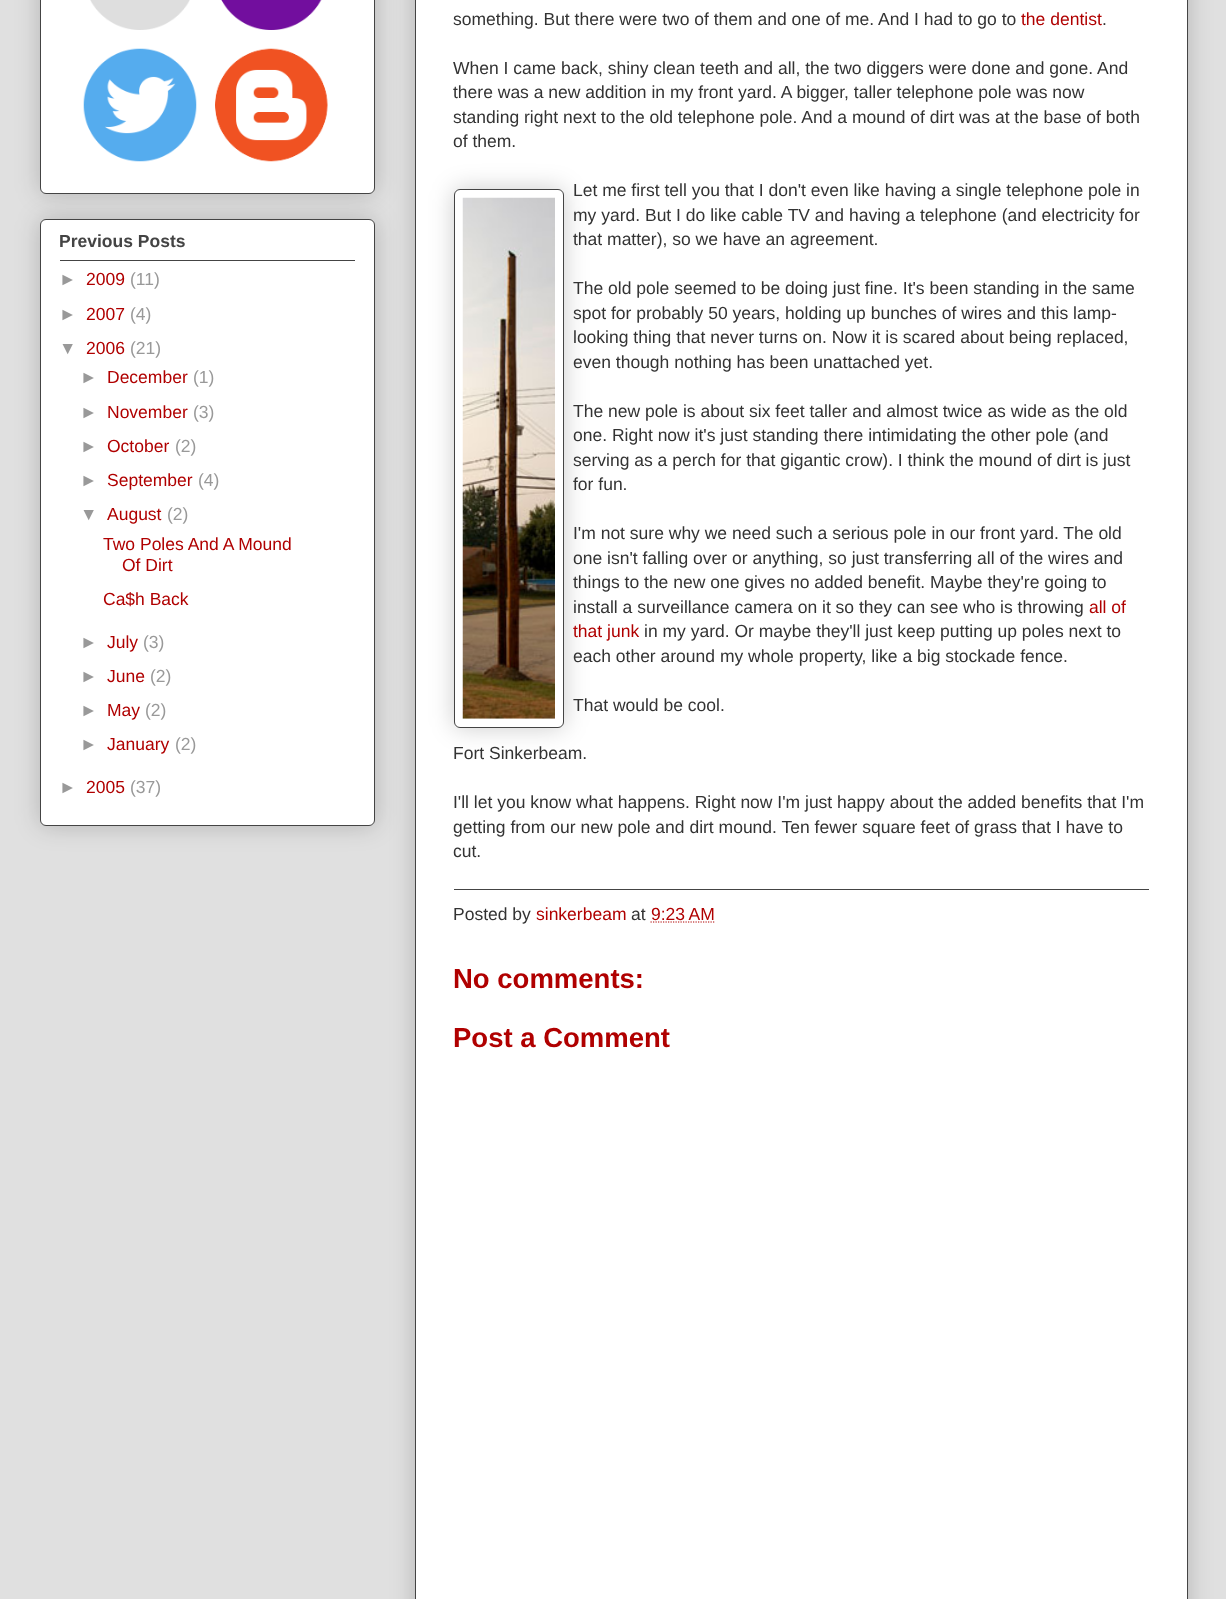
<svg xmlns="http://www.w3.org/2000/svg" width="1226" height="1599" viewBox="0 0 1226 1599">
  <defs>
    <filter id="blur1" x="-50%" y="-200%" width="200%" height="500%"><feGaussianBlur stdDeviation="12.5"/></filter>
  </defs>
  <rect width="100%" height="100%" fill="#e0e0e0"/>
  <rect x="40" y="-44" width="335" height="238" rx="6" fill="#000000" fill-opacity="0.2" filter="url(#blur1)"/>
  <rect x="40.5" y="-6.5" width="334" height="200" rx="5.5" fill="#ffffff" stroke="#444444"/>
  <image x="90" y="0" width="100" height="30" href="img1.png"/>
  <image x="221" y="0" width="101" height="30" href="img2.png"/>
  <image x="83" y="48" width="114" height="114" href="img3.png"/>
  <image x="215" y="48" width="113" height="114" href="img4.png"/>
  <rect x="40" y="219" width="335" height="607" rx="6" fill="#000000" fill-opacity="0.2" filter="url(#blur1)"/>
  <rect x="40.5" y="219.5" width="334" height="606" rx="5.5" fill="#ffffff" stroke="#444444"/>
  <text x="59" y="247" font-family="Liberation Sans" font-size="17.5" font-weight="bold" fill="#444444">Previous Posts</text>
  <rect x="60" y="260" width="295" height="1" fill="#444444"/>
  <text x="59" y="285" font-family="Liberation Sans" font-size="17.5" fill="#999999">►</text>
  <text x="86" y="285" font-family="Liberation Sans" font-size="17.5" fill="#b00000">2009</text>
  <text x="130" y="285" font-family="Liberation Sans" font-size="17.5" fill="#999999">(11)</text>
  <text x="59" y="320" font-family="Liberation Sans" font-size="17.5" fill="#999999">►</text>
  <text x="86" y="320" font-family="Liberation Sans" font-size="17.5" fill="#b00000">2007</text>
  <text x="130" y="320" font-family="Liberation Sans" font-size="17.5" fill="#999999">(4)</text>
  <text x="59" y="354" font-family="Liberation Sans" font-size="17.5" fill="#999999">▼</text>
  <text x="86" y="354" font-family="Liberation Sans" font-size="17.5" fill="#b00000">2006</text>
  <text x="130" y="354" font-family="Liberation Sans" font-size="17.5" fill="#999999">(21)</text>
  <text x="80" y="383" font-family="Liberation Sans" font-size="17.5" fill="#999999">►</text>
  <text x="107" y="383" font-family="Liberation Sans" font-size="17.5" fill="#b00000">December</text>
  <text x="193" y="383" font-family="Liberation Sans" font-size="17.5" fill="#999999">(1)</text>
  <text x="80" y="418" font-family="Liberation Sans" font-size="17.5" fill="#999999">►</text>
  <text x="107" y="418" font-family="Liberation Sans" font-size="17.5" fill="#b00000">November</text>
  <text x="193" y="418" font-family="Liberation Sans" font-size="17.5" fill="#999999">(3)</text>
  <text x="80" y="452" font-family="Liberation Sans" font-size="17.5" fill="#999999">►</text>
  <text x="107" y="452" font-family="Liberation Sans" font-size="17.5" fill="#b00000">October</text>
  <text x="175" y="452" font-family="Liberation Sans" font-size="17.5" fill="#999999">(2)</text>
  <text x="80" y="486" font-family="Liberation Sans" font-size="17.5" fill="#999999">►</text>
  <text x="107" y="486" font-family="Liberation Sans" font-size="17.5" fill="#b00000">September</text>
  <text x="198" y="486" font-family="Liberation Sans" font-size="17.5" fill="#999999">(4)</text>
  <text x="80" y="520" font-family="Liberation Sans" font-size="17.5" fill="#999999">▼</text>
  <text x="107" y="520" font-family="Liberation Sans" font-size="17.5" fill="#b00000">August</text>
  <text x="167" y="520" font-family="Liberation Sans" font-size="17.5" fill="#999999">(2)</text>
  <text x="103" y="550" font-family="Liberation Sans" font-size="17.5" fill="#b00000">Two Poles And A Mound</text>
  <text x="122" y="571" font-family="Liberation Sans" font-size="17.5" fill="#b00000">Of Dirt</text>
  <text x="103" y="605" font-family="Liberation Sans" font-size="17.5" fill="#b00000">Ca$h Back</text>
  <text x="80" y="648" font-family="Liberation Sans" font-size="17.5" fill="#999999">►</text>
  <text x="107" y="648" font-family="Liberation Sans" font-size="17.5" fill="#b00000">July</text>
  <text x="143" y="648" font-family="Liberation Sans" font-size="17.5" fill="#999999">(3)</text>
  <text x="80" y="682" font-family="Liberation Sans" font-size="17.5" fill="#999999">►</text>
  <text x="107" y="682" font-family="Liberation Sans" font-size="17.5" fill="#b00000">June</text>
  <text x="150" y="682" font-family="Liberation Sans" font-size="17.5" fill="#999999">(2)</text>
  <text x="80" y="716" font-family="Liberation Sans" font-size="17.5" fill="#999999">►</text>
  <text x="107" y="716" font-family="Liberation Sans" font-size="17.5" fill="#b00000">May</text>
  <text x="145" y="716" font-family="Liberation Sans" font-size="17.5" fill="#999999">(2)</text>
  <text x="80" y="750" font-family="Liberation Sans" font-size="17.5" fill="#999999">►</text>
  <text x="107" y="750" font-family="Liberation Sans" font-size="17.5" fill="#b00000">January</text>
  <text x="175" y="750" font-family="Liberation Sans" font-size="17.5" fill="#999999">(2)</text>
  <text x="59" y="793" font-family="Liberation Sans" font-size="17.5" fill="#999999">►</text>
  <text x="86" y="793" font-family="Liberation Sans" font-size="17.5" fill="#b00000">2005</text>
  <text x="130" y="793" font-family="Liberation Sans" font-size="17.5" fill="#999999">(37)</text>
  <rect x="415" y="-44" width="773" height="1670" rx="6" fill="#000000" fill-opacity="0.2" filter="url(#blur1)"/>
  <rect x="415.5" y="-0.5" width="772" height="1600" fill="#ffffff" stroke="#444444"/>
  <text x="453" y="25" font-family="Liberation Sans" font-size="17.5" fill="#333333">something. But there were two of them and one of me. And I had to go to</text>
  <text x="1021" y="25" font-family="Liberation Sans" font-size="17.5" fill="#b00000">the dentist</text>
  <text x="1102" y="25" font-family="Liberation Sans" font-size="17.5" fill="#333333">.</text>
  <text x="453" y="74" font-family="Liberation Sans" font-size="17.5" fill="#333333">When I came back, shiny clean teeth and all, the two diggers were done and gone. And</text>
  <text x="453" y="98" font-family="Liberation Sans" font-size="17.5" fill="#333333">there was a new addition in my front yard. A bigger, taller telephone pole was now</text>
  <text x="453" y="123" font-family="Liberation Sans" font-size="17.5" fill="#333333">standing right next to the old telephone pole. And a mound of dirt was at the base of both</text>
  <text x="453" y="147" font-family="Liberation Sans" font-size="17.5" fill="#333333">of them.</text>
  <rect x="454" y="189" width="110" height="539" rx="6" fill="#000000" fill-opacity="0.2" filter="url(#blur1)"/>
  <rect x="454.5" y="189.5" width="109" height="538" rx="5.5" fill="#ffffff" stroke="#444444"/>
  <image x="462" y="197" width="93" height="522" href="img5.png"/>
  <text x="573" y="196" font-family="Liberation Sans" font-size="17.5" fill="#333333">Let me first tell you that I don't even like having a single telephone pole in</text>
  <text x="573" y="221" font-family="Liberation Sans" font-size="17.5" fill="#333333">my yard. But I do like cable TV and having a telephone (and electricity for</text>
  <text x="573" y="245" font-family="Liberation Sans" font-size="17.5" fill="#333333">that matter), so we have an agreement.</text>
  <text x="573" y="294" font-family="Liberation Sans" font-size="17.5" fill="#333333">The old pole seemed to be doing just fine. It's been standing in the same</text>
  <text x="573" y="319" font-family="Liberation Sans" font-size="17.5" fill="#333333">spot for probably 50 years, holding up bunches of wires and this lamp-</text>
  <text x="573" y="343" font-family="Liberation Sans" font-size="17.5" fill="#333333">looking thing that never turns on. Now it is scared about being replaced,</text>
  <text x="573" y="368" font-family="Liberation Sans" font-size="17.5" fill="#333333">even though nothing has been unattached yet.</text>
  <text x="573" y="417" font-family="Liberation Sans" font-size="17.5" fill="#333333">The new pole is about six feet taller and almost twice as wide as the old</text>
  <text x="573" y="441" font-family="Liberation Sans" font-size="17.5" fill="#333333">one. Right now it's just standing there intimidating the other pole (and</text>
  <text x="573" y="466" font-family="Liberation Sans" font-size="17.5" fill="#333333">serving as a perch for that gigantic crow). I think the mound of dirt is just</text>
  <text x="573" y="490" font-family="Liberation Sans" font-size="17.5" fill="#333333">for fun.</text>
  <text x="573" y="539" font-family="Liberation Sans" font-size="17.5" fill="#333333">I'm not sure why we need such a serious pole in our front yard. The old</text>
  <text x="573" y="564" font-family="Liberation Sans" font-size="17.5" fill="#333333">one isn't falling over or anything, so just transferring all of the wires and</text>
  <text x="573" y="588" font-family="Liberation Sans" font-size="17.5" fill="#333333">things to the new one gives no added benefit. Maybe they're going to</text>
  <text x="573" y="613" font-family="Liberation Sans" font-size="17.5" fill="#333333">install a surveillance camera on it so they can see who is throwing</text>
  <text x="1089" y="613" font-family="Liberation Sans" font-size="17.5" fill="#b00000">all of</text>
  <text x="573" y="637" font-family="Liberation Sans" font-size="17.5" fill="#b00000">that junk</text>
  <text x="644" y="637" font-family="Liberation Sans" font-size="17.5" fill="#333333">in my yard. Or maybe they'll just keep putting up poles next to</text>
  <text x="573" y="662" font-family="Liberation Sans" font-size="17.5" fill="#333333">each other around my whole property, like a big stockade fence.</text>
  <text x="573" y="711" font-family="Liberation Sans" font-size="17.5" fill="#333333">That would be cool.</text>
  <text x="453" y="759" font-family="Liberation Sans" font-size="17.5" fill="#333333">Fort Sinkerbeam.</text>
  <text x="453" y="808" font-family="Liberation Sans" font-size="17.5" fill="#333333">I'll let you know what happens. Right now I'm just happy about the added benefits that I'm</text>
  <text x="453" y="833" font-family="Liberation Sans" font-size="17.5" fill="#333333">getting from our new pole and dirt mound. Ten fewer square feet of grass that I have to</text>
  <text x="453" y="857" font-family="Liberation Sans" font-size="17.5" fill="#333333">cut.</text>
  <rect x="454" y="889" width="695" height="1" fill="#444444"/>
  <text x="453" y="920" font-family="Liberation Sans" font-size="17.5" fill="#333333">Posted by</text>
  <text x="536" y="920" font-family="Liberation Sans" font-size="17.5" fill="#b00000">sinkerbeam</text>
  <text x="631" y="920" font-family="Liberation Sans" font-size="17.5" fill="#333333">at</text>
  <text x="651" y="920" font-family="Liberation Sans" font-size="17.5" fill="#b00000">9:23 AM</text>
  <path d="M650.5 922H714.5" fill="none" stroke="#b00000" stroke-width="1.2" stroke-dasharray="1.25 1.25"/>
  <text x="453" y="988" font-family="Liberation Sans" font-size="27.5" font-weight="bold" fill="#b00000">No comments:</text>
  <text x="453" y="1047" font-family="Liberation Sans" font-size="27.5" font-weight="bold" fill="#b00000">Post a Comment</text>
</svg>
